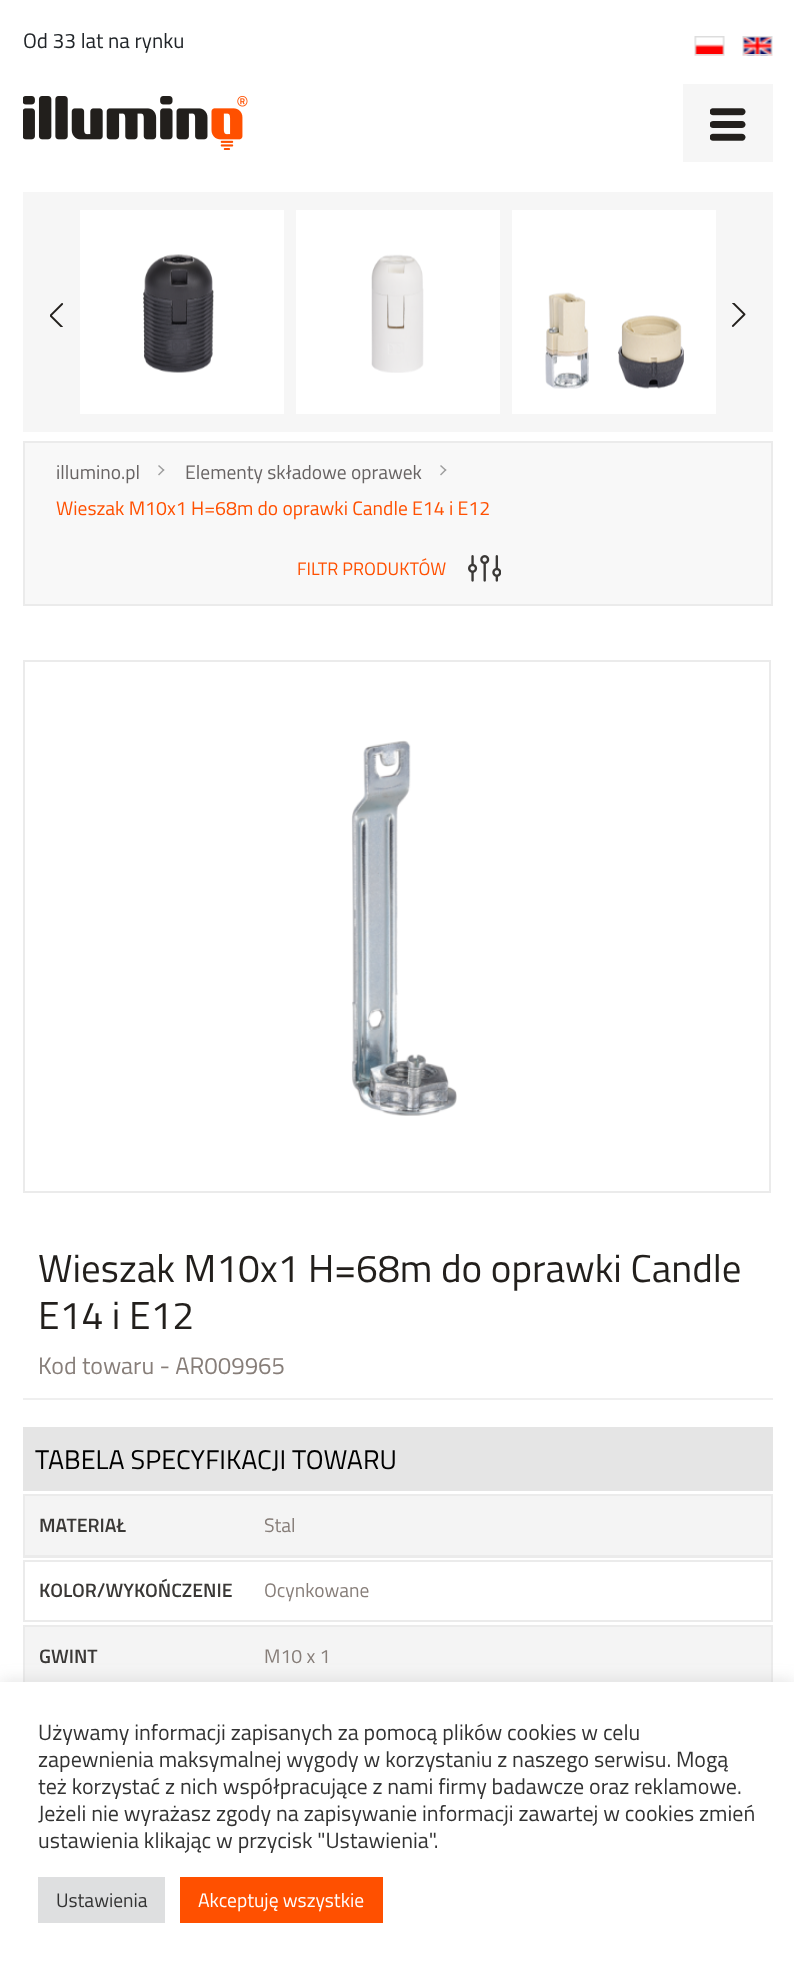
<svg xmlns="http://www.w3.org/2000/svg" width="794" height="1967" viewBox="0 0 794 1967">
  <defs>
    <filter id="blur1" x="-50%" y="-200%" width="200%" height="500%"><feGaussianBlur stdDeviation="7.5"/></filter>
  </defs>
  <rect width="100%" height="100%" fill="#ffffff"/>
  <text x="23" y="48" font-family="Titillium Web" font-size="21" fill="#212529">Od 33 lat na rynku</text>
  <image x="694" y="36" width="31" height="20" href="img1.png"/>
  <image x="742" y="36" width="31" height="20" href="img2.png"/>
  <image x="23" y="96" width="225" height="54" href="img3.png"/>
  <rect x="683" y="84" width="90" height="78" fill="#f6f6f6"/>
  <image x="710" y="108" width="36" height="33" href="img4.png"/>
  <rect x="23" y="192" width="750" height="240" fill="#f6f6f6"/>
  <image x="50" y="303" width="14" height="24" href="img5.png"/>
  <rect x="80" y="210" width="204" height="204" fill="#ffffff"/>
  <image x="143" y="254" width="71" height="119" href="img6.png"/>
  <rect x="296" y="210" width="204" height="204" fill="#ffffff"/>
  <image x="371" y="254" width="53" height="119" href="img7.png"/>
  <rect x="512" y="210" width="204" height="204" fill="#ffffff"/>
  <image x="545" y="292" width="139" height="97" href="img8.png"/>
  <image x="731" y="303" width="15" height="24" href="img9.png"/>
  <rect x="24" y="442" width="748" height="163" fill="#f8f8f8" stroke="#ebebeb" stroke-width="2"/>
  <text x="56" y="479" font-family="Titillium Web" font-size="19.5" fill="#686464">illumino.pl</text>
  <path d="M158 466L159 465L164.5 470L163.5 471Z" fill="#9e9e9e"/>
  <path d="M158 474.5L163.5 469L164.5 470L159 475.5Z" fill="#9e9e9e"/>
  <text x="185" y="479" font-family="Titillium Web" font-size="19.5" fill="#686464">Elementy składowe oprawek</text>
  <path d="M440 466L441 465L446.5 470L445.5 471Z" fill="#9e9e9e"/>
  <path d="M440 474.5L445.5 469L446.5 470L441 475.5Z" fill="#9e9e9e"/>
  <text x="56" y="515" font-family="Titillium Web" font-size="19.5" fill="#ff5000">Wieszak M10x1 H=68m do oprawki Candle E14 i E12</text>
  <text x="297" y="575" font-family="Titillium Web" font-size="18" fill="#ff5000">FILTR PRODUKTÓW</text>
  <image x="468" y="555" width="33" height="27" href="img10.png"/>
  <rect x="24" y="661" width="746" height="531" fill="none" stroke="#ebebeb" stroke-width="2"/>
  <image x="351" y="740" width="106" height="376" href="img11.png"/>
  <rect x="23" y="1398" width="750" height="2" fill="#efefef"/>
  <text x="38" y="1282" font-family="Titillium Web" font-size="39" fill="#221f1c">Wieszak M10x1 H=68m do oprawki Candle</text>
  <text x="38" y="1329" font-family="Titillium Web" font-size="39" fill="#221f1c">E14 i E12</text>
  <text x="38" y="1374" font-family="Titillium Web" font-size="24" fill="#877e79">Kod towaru - AR009965</text>
  <rect x="23" y="1427" width="750" height="64" fill="#e5e5e5"/>
  <text x="35" y="1469" font-family="Titillium Web" font-size="27" fill="#000000">TABELA SPECYFIKACJI TOWARU</text>
  <rect x="24" y="1495" width="748" height="61" fill="#f4f4f4" stroke="#ebebeb" stroke-width="2"/>
  <rect x="23" y="1557" width="750" height="1" fill="#ebebeb"/>
  <text x="39" y="1532" font-family="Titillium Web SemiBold" font-size="19.5" font-weight="600" fill="#3a3836">MATERIAŁ</text>
  <text x="264" y="1532" font-family="Titillium Web" font-size="19.5" fill="#877e79">Stal</text>
  <rect x="24" y="1561" width="748" height="60" fill="none" stroke="#ebebeb" stroke-width="2"/>
  <text x="39" y="1597" font-family="Titillium Web SemiBold" font-size="19.5" font-weight="600" fill="#3a3836">KOLOR/WYKOŃCZENIE</text>
  <text x="264" y="1597" font-family="Titillium Web" font-size="19.5" fill="#877e79">Ocynkowane</text>
  <rect x="25" y="1627" width="746" height="55" fill="#f4f4f4"/>
  <rect x="24" y="1626" width="748" height="61" fill="none" stroke="#ebebeb" stroke-width="2"/>
  <text x="39" y="1663" font-family="Titillium Web SemiBold" font-size="19.5" font-weight="600" fill="#3a3836">GWINT</text>
  <text x="264" y="1663" font-family="Titillium Web" font-size="19.5" fill="#877e79">M10 x 1</text>
  <rect x="0" y="1680" width="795" height="287" fill="#acabab" fill-opacity="0.3" filter="url(#blur1)"/>
  <rect x="0" y="1682" width="794" height="285" fill="#ffffff"/>
  <text x="38" y="1740" font-family="Titillium Web" font-size="22" fill="#333333">Używamy informacji zapisanych za pomocą plików cookies w celu</text>
  <text x="38" y="1767" font-family="Titillium Web" font-size="22" fill="#333333">zapewnienia maksymalnej wygody w korzystaniu z naszego serwisu. Mogą</text>
  <text x="38" y="1794" font-family="Titillium Web" font-size="22" fill="#333333">też korzystać z nich współpracujące z nami firmy badawcze oraz reklamowe.</text>
  <text x="38" y="1821" font-family="Titillium Web" font-size="22" fill="#333333">Jeżeli nie wyrażasz zgody na zapisywanie informacji zawartej w cookies zmień</text>
  <text x="38" y="1848" font-family="Titillium Web" font-size="22" fill="#333333">ustawienia klikając w przycisk "Ustawienia".</text>
  <rect x="38" y="1877" width="127" height="46" fill="#dedfe0"/>
  <text x="56" y="1907" font-family="Titillium Web" font-size="19.5" fill="#333333">Ustawienia</text>
  <rect x="180" y="1877" width="203" height="46" fill="#ff5000"/>
  <text x="198" y="1907" font-family="Titillium Web" font-size="19.5" fill="#ffffff">Akceptuję wszystkie</text>
</svg>
